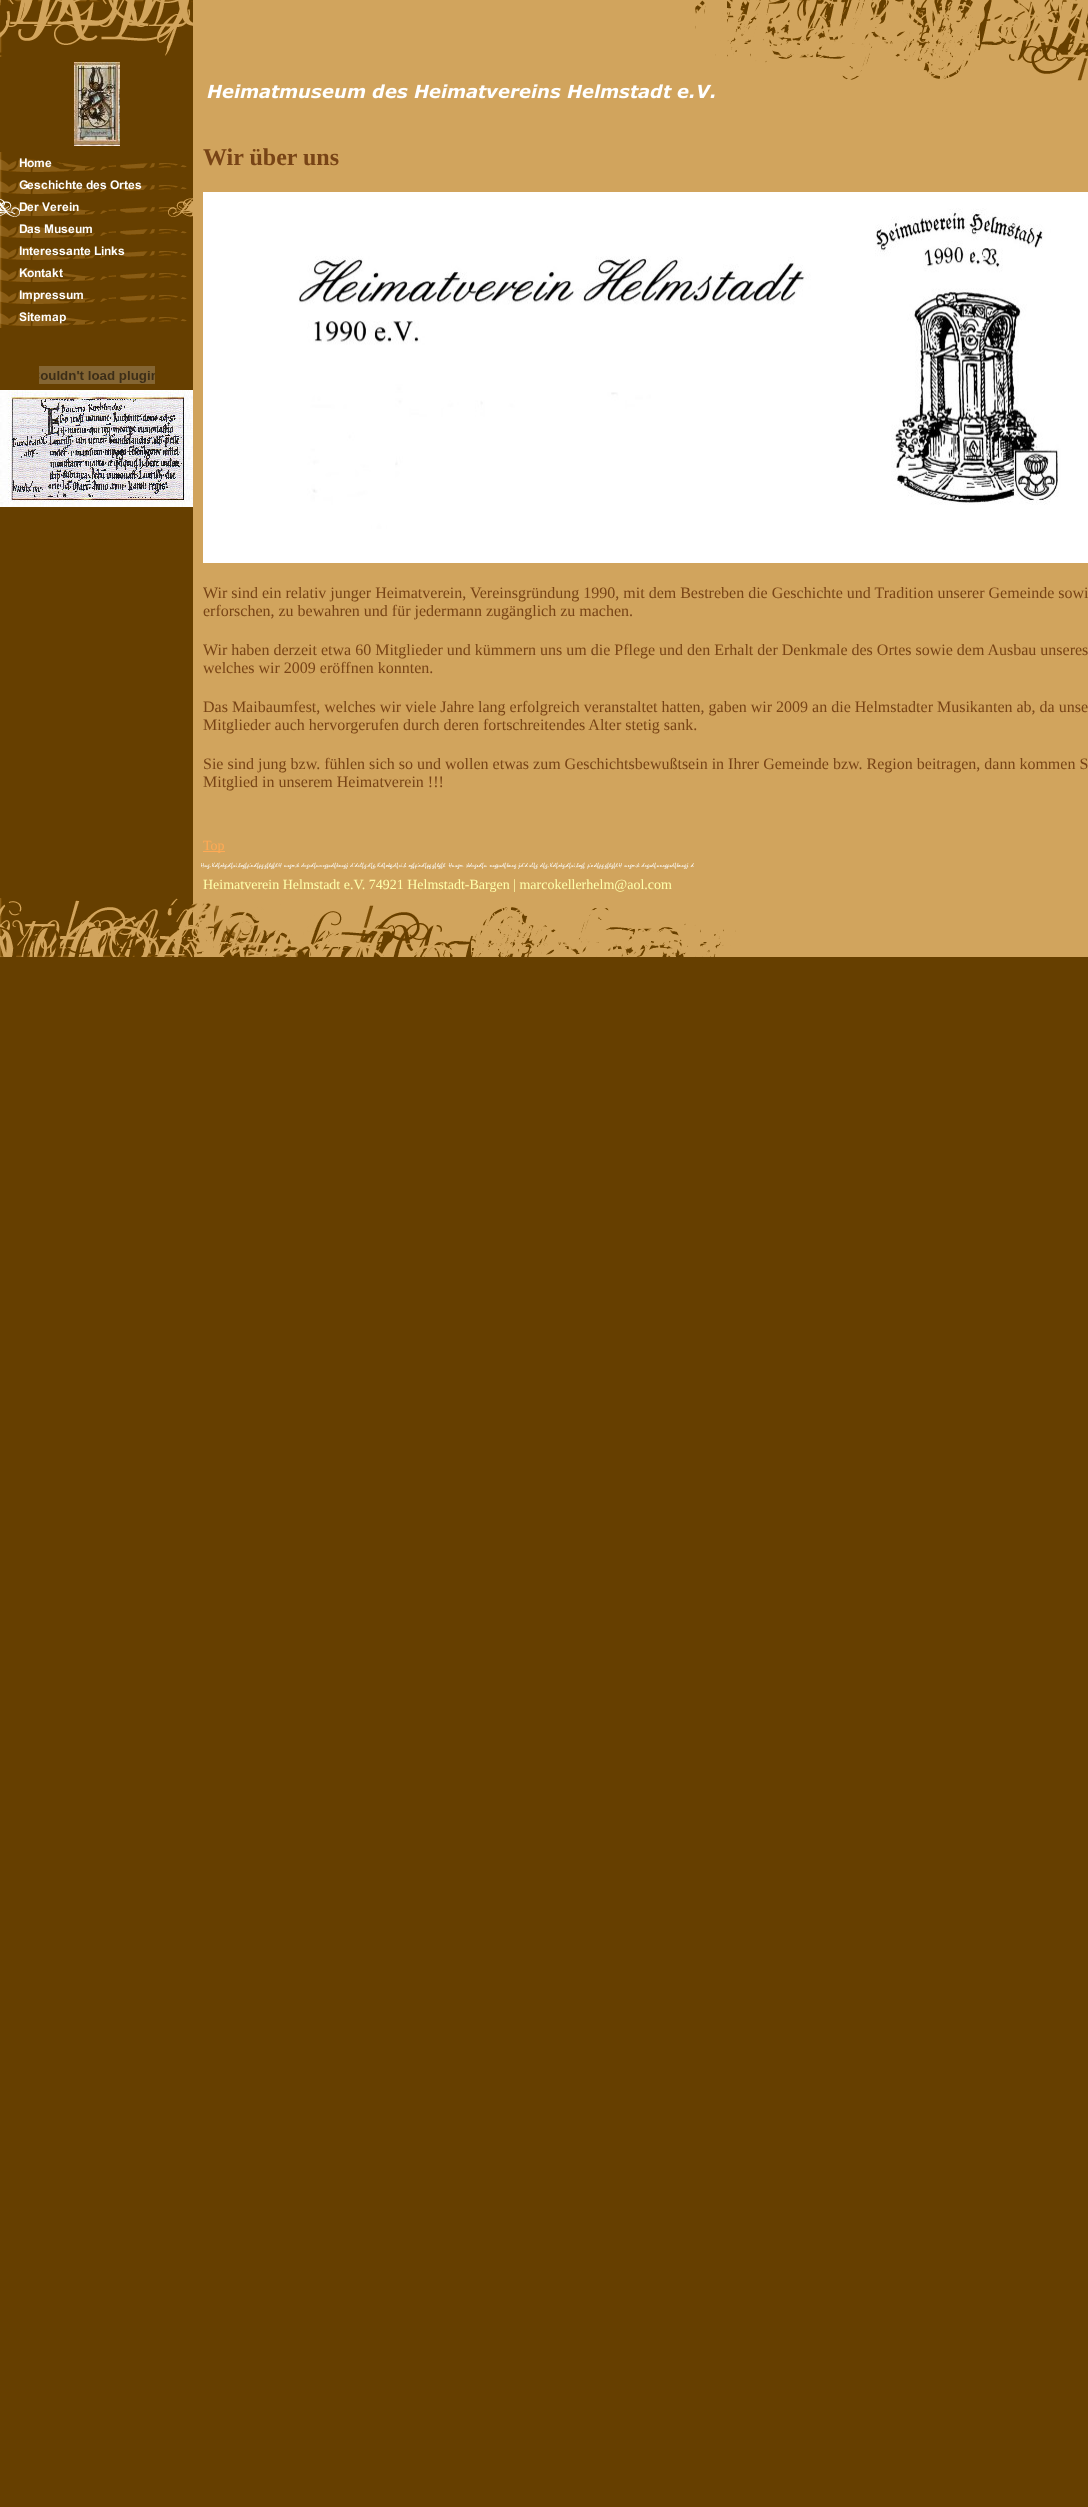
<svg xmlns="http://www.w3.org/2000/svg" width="1088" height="2507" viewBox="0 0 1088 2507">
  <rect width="100%" height="100%" fill="#663f00"/>
  <image x="0" y="0" width="193" height="57" href="img1.png"/>
  <image x="74" y="62" width="46" height="84" href="img2.png"/>
  <image x="0" y="152" width="187" height="22" href="img3.png"/>
  <image x="0" y="174" width="187" height="22" href="img4.png"/>
  <image x="0" y="196" width="193" height="22" href="img5.png"/>
  <image x="0" y="218" width="187" height="22" href="img6.png"/>
  <image x="0" y="240" width="187" height="22" href="img7.png"/>
  <image x="0" y="262" width="187" height="22" href="img8.png"/>
  <image x="0" y="284" width="187" height="22" href="img9.png"/>
  <image x="0" y="306" width="187" height="22" href="img10.png"/>
  <image x="39" y="366" width="116" height="18" href="img11.png"/>
  <image x="0" y="390" width="193" height="117" href="img12.png"/>
  <rect x="193" y="0" width="895" height="957" fill="#d1a45d"/>
  <image x="695" y="0" width="393" height="81" href="img13.png"/>
  <image x="207" y="84" width="508" height="15" href="img14.png"/>
  <text x="203" y="165" font-family="Liberation Serif" font-size="24" font-weight="bold" fill="#784416">Wir über uns</text>
  <image x="203" y="192" width="885" height="371" href="img15.png"/>
  <text x="203" y="598" font-family="Liberation Serif" font-size="16" fill="#784416">Wir sind ein relativ junger Heimatverein, Vereinsgründung 1990, mit dem Bestreben die Geschichte und Tradition unserer Gemeinde sowi</text>
  <text x="203" y="616" font-family="Liberation Serif" font-size="16" fill="#784416">erforschen, zu bewahren und für jedermann zugänglich zu machen.</text>
  <text x="203" y="655" font-family="Liberation Serif" font-size="16" fill="#784416">Wir haben derzeit etwa 60 Mitglieder und kümmern uns um die Pflege und den Erhalt der Denkmale des Ortes sowie dem Ausbau unseres</text>
  <text x="203" y="673" font-family="Liberation Serif" font-size="16" fill="#784416">welches wir 2009 eröffnen konnten.</text>
  <text x="203" y="712" font-family="Liberation Serif" font-size="16" fill="#784416">Das Maibaumfest, welches wir viele Jahre lang erfolgreich veranstaltet hatten, gaben wir 2009 an die Helmstadter Musikanten ab, da unse</text>
  <text x="203" y="730" font-family="Liberation Serif" font-size="16" fill="#784416">Mitglieder auch hervorgerufen durch deren fortschreitendes Alter stetig sank.</text>
  <text x="203" y="769" font-family="Liberation Serif" font-size="16" fill="#784416">Sie sind jung bzw. fühlen sich so und wollen etwas zum Geschichtsbewußtsein in Ihrer Gemeinde bzw. Region beitragen, dann kommen S</text>
  <text x="203" y="787" font-family="Liberation Serif" font-size="16" fill="#784416">Mitglied in unserem Heimatverein !!!</text>
  <rect x="203" y="851" width="22" height="1" fill="#ffaa55"/>
  <text x="203" y="850" font-family="Liberation Serif" font-size="14" fill="#ffaa55">Top</text>
  <image x="201" y="862" width="493" height="7" href="img16.png"/>
  <text x="203" y="889" font-family="Liberation Serif" font-size="14" fill="#ffffaa">Heimatverein Helmstadt e.V. 74921 Helmstadt-Bargen | marcokellerhelm@aol.com</text>
  <image x="0" y="898" width="193" height="59" href="img17.png"/>
  <image x="193" y="903" width="543" height="54" href="img18.png"/>
</svg>
